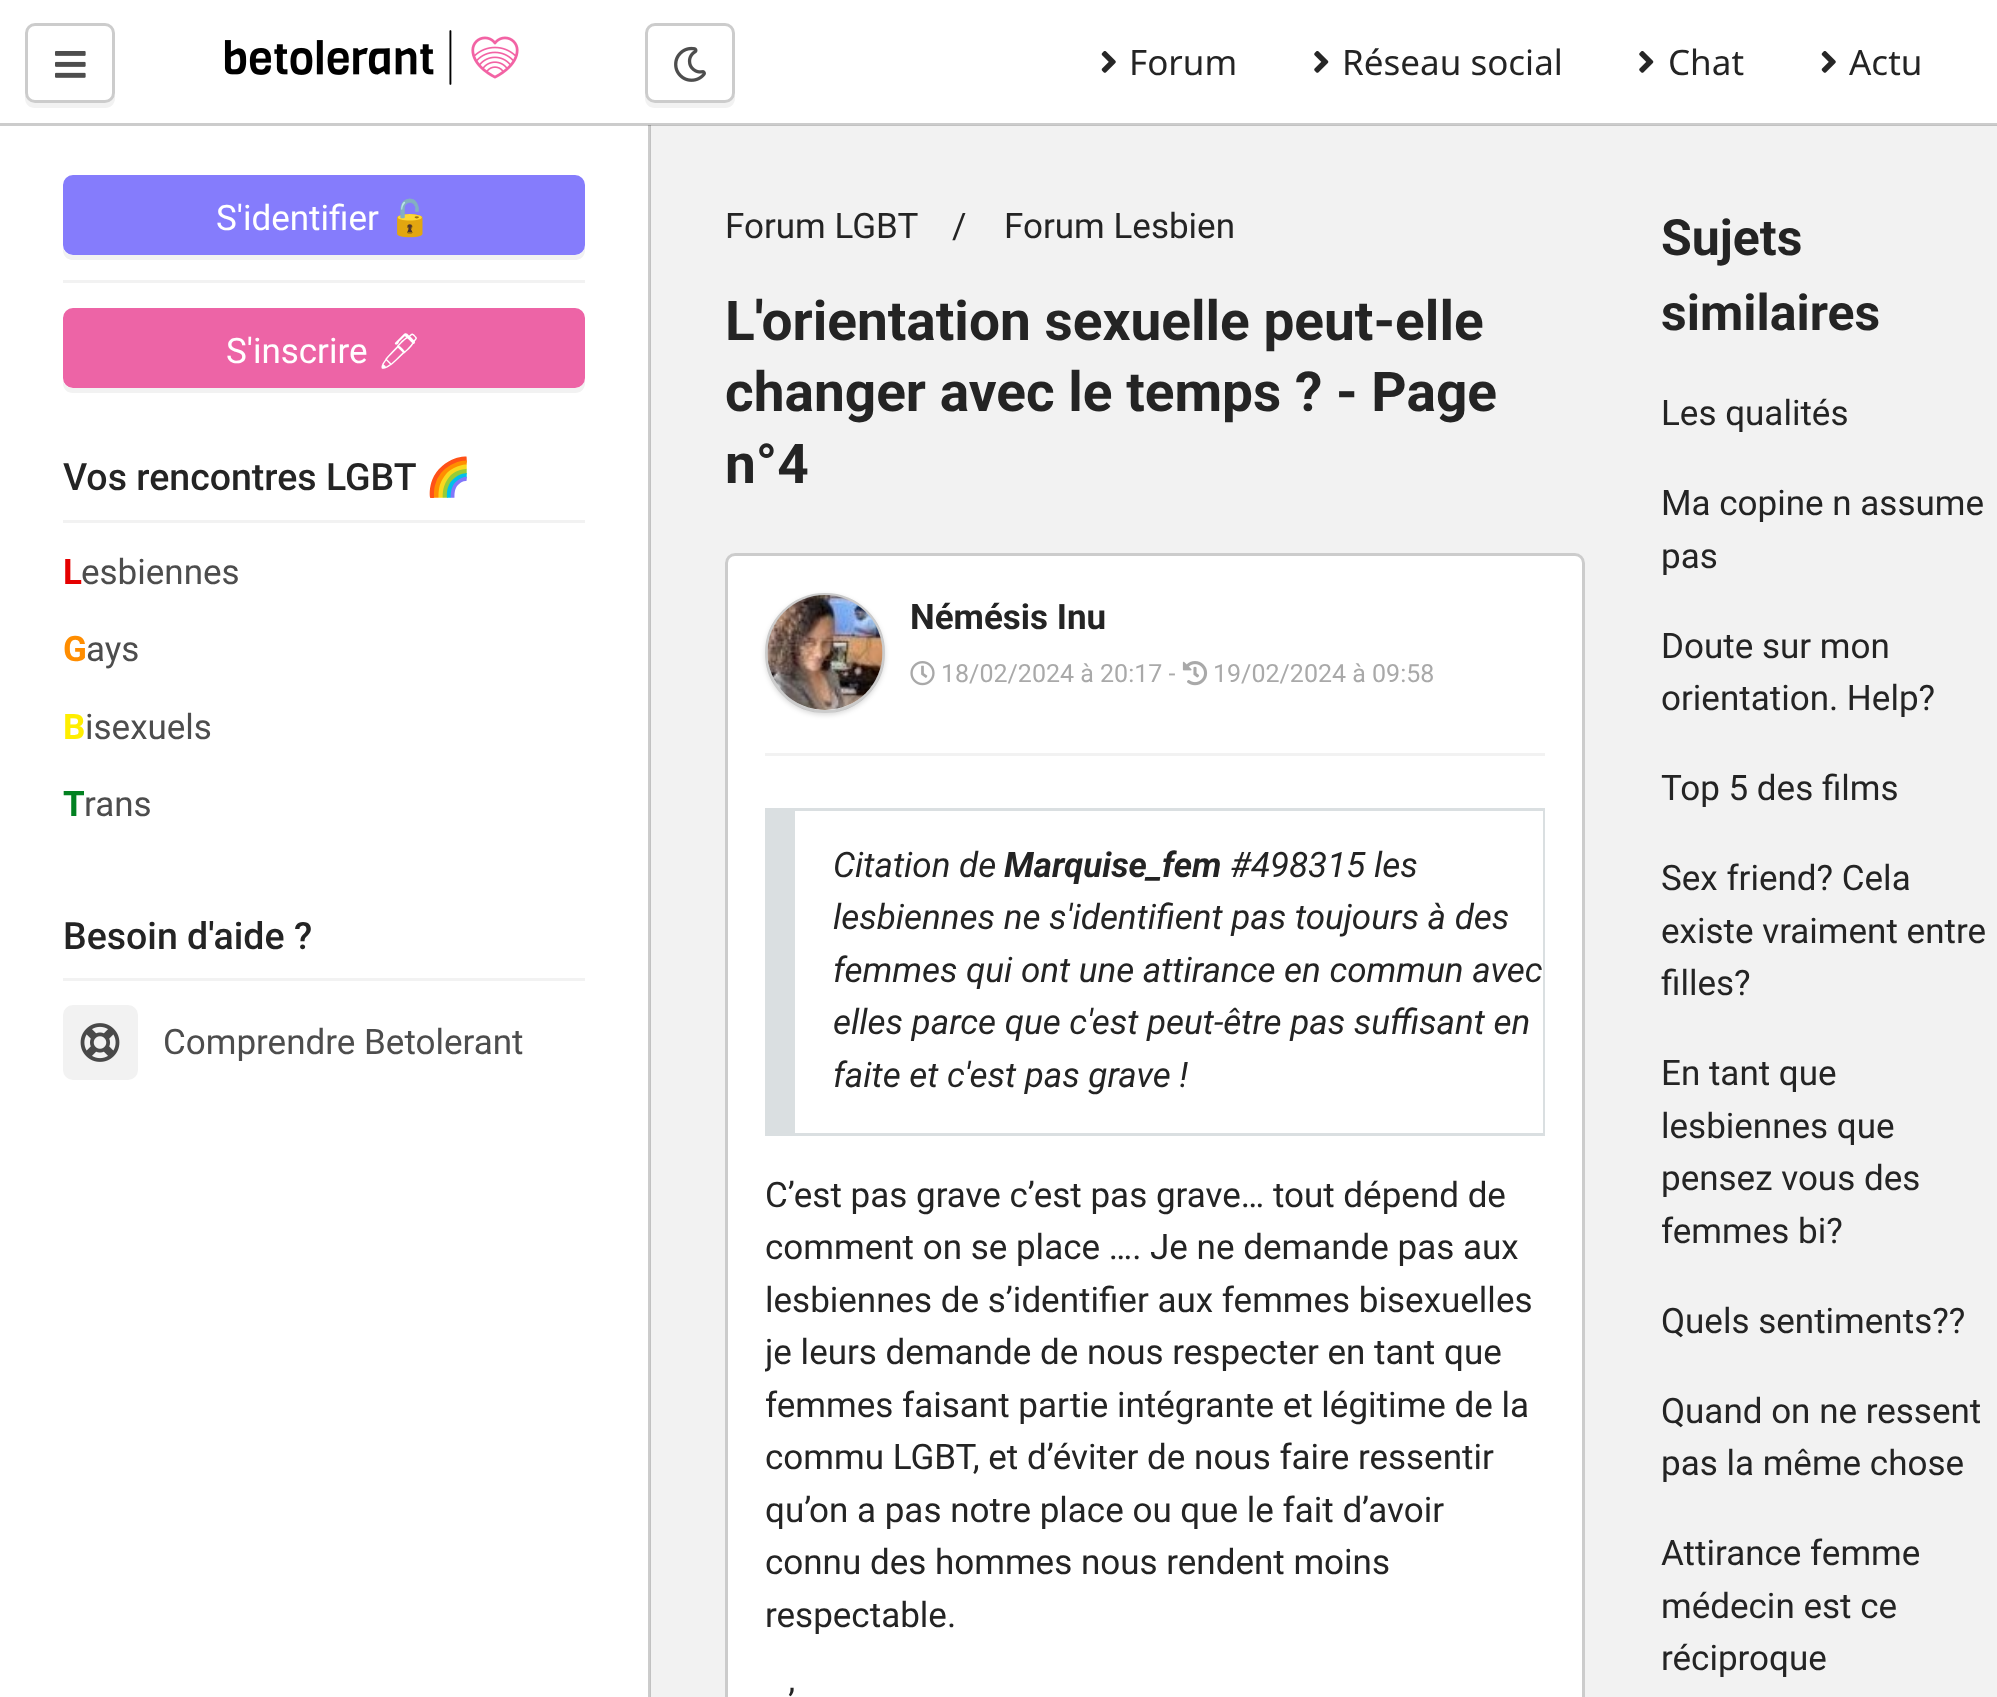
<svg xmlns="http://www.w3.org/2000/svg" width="1997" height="1697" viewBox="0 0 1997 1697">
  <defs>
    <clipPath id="clip1"><path d="M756 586H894V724H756ZM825 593C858 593 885 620 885 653C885 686 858 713 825 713C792 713 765 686 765 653C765 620 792 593 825 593Z" clip-rule="evenodd"/></clipPath>
    <filter id="blur1" x="-50%" y="-200%" width="200%" height="500%"><feGaussianBlur stdDeviation="2.5"/></filter>
    <clipPath id="clip2"><rect x="765" y="773" width="780" height="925"/></clipPath>
  </defs>
  <rect width="100%" height="100%" fill="#f2f2f2"/>
  <rect x="651" y="125" width="1346" height="1" fill="#c2c2c2"/>
  <rect x="650" y="125" width="1" height="1572" fill="#c2c2c2"/>
  <rect x="648" y="125" width="3" height="1" fill="#9b9b9b"/>
  <rect x="0" y="0" width="1997" height="123" fill="#ffffff"/>
  <rect x="0" y="123" width="1997" height="2" fill="#cccccc"/>
  <path d="M25 92V98C25 104 29 108 35 108H105C111 108 115 104 115 98V92C115 98 111 102 105 102H35C29 102 25 98 25 92Z" fill="#f2f2f2"/>
  <rect x="25" y="23" width="90" height="80" rx="10" fill="#ffffff"/>
  <rect x="26.5" y="24.5" width="87" height="77" rx="8.5" fill="none" stroke="#000000" stroke-opacity="0.2" stroke-width="3"/>
  <image x="55" y="51" width="31" height="27" href="img1.png"/>
  <image x="224" y="30" width="295" height="55" href="img2.png"/>
  <path d="M645 92V98C645 104 649 108 655 108H725C731 108 735 104 735 98V92C735 98 731 102 725 102H655C649 102 645 98 645 92Z" fill="#f2f2f2"/>
  <rect x="645" y="23" width="90" height="80" rx="10" fill="#ffffff"/>
  <rect x="646.5" y="24.5" width="87" height="77" rx="8.5" fill="none" stroke="#000000" stroke-opacity="0.2" stroke-width="3"/>
  <image x="674" y="46" width="32" height="36" href="img3.png"/>
  <image x="1101" y="51" width="15" height="22" href="img4.png"/>
  <text x="1129" y="75" font-family="Noto Sans" font-size="35" fill="#242424">Forum</text>
  <image x="1314" y="51" width="15" height="22" href="img5.png"/>
  <text x="1342" y="75" font-family="Noto Sans" font-size="35" fill="#242424">Réseau social</text>
  <image x="1639" y="51" width="15" height="22" href="img5.png"/>
  <text x="1668" y="75" font-family="Noto Sans" font-size="35" fill="#242424">Chat</text>
  <image x="1821" y="51" width="15" height="22" href="img4.png"/>
  <text x="1849" y="75" font-family="Noto Sans" font-size="35" fill="#242424">Actu</text>
  <rect x="0" y="126" width="648" height="1571" fill="#ffffff"/>
  <rect x="0" y="125" width="650" height="1" fill="#cccccc"/>
  <rect x="648" y="125" width="2" height="1572" fill="#cccccc"/>
  <rect x="648" y="125" width="2" height="1" fill="#a3a3a3"/>
  <path d="M63 248V250C63 256 67 260 73 260H575C581 260 585 256 585 250V245C585 251 581 255 575 255H72C68 255 64 252 63 248Z" fill="#f2f2f2"/>
  <rect x="64.5" y="176.5" width="519" height="77" rx="8.5" fill="#857cfc" stroke="#857cfc" stroke-width="3"/>
  <text x="216" y="230" font-family="Roboto" font-size="35" fill="#ffffff">S'identifier</text>
  <text x="388" y="230" font-family="Noto Color Emoji" font-size="35" fill="#ffffff">🔓</text>
  <rect x="63" y="280" width="522" height="3" fill="#f2f2f2"/>
  <path d="M63 381V383C63 389 67 393 73 393H575C581 393 585 389 585 383V378C585 383 581 388 575 388H72C68 388 64 385 63 381Z" fill="#f2f2f2"/>
  <rect x="64.5" y="309.5" width="519" height="77" rx="8.5" fill="#ed64a6" stroke="#ed64a6" stroke-width="3"/>
  <text x="226" y="363" font-family="Roboto" font-size="35" fill="#ffffff">S'inscrire</text>
  <text x="377" y="363" font-family="Noto Emoji" font-size="35" fill="#ffffff">🖊</text>
  <text x="63" y="490" font-family="Roboto" font-size="37.5" font-weight="500" fill="#242424">Vos rencontres LGBT</text>
  <text x="425" y="490" font-family="Noto Color Emoji" font-size="37.5" fill="#242424">🌈</text>
  <rect x="63" y="520" width="522" height="3" fill="#f2f2f2"/>
  <text x="63" y="584" font-family="Roboto" font-size="35" font-weight="bold" fill="#e50000">L</text>
  <text x="81" y="584" font-family="Roboto" font-size="35" fill="#4d4d4d">esbiennes</text>
  <text x="63" y="661" font-family="Roboto" font-size="35" font-weight="bold" fill="#ff8d00">G</text>
  <text x="86" y="661" font-family="Roboto" font-size="35" fill="#4d4d4d">ays</text>
  <text x="63" y="739" font-family="Roboto" font-size="35" font-weight="bold" fill="#ffee00">B</text>
  <text x="85" y="739" font-family="Roboto" font-size="35" fill="#4d4d4d">isexuels</text>
  <text x="63" y="816" font-family="Roboto" font-size="35" font-weight="bold" fill="#028121">T</text>
  <text x="84" y="816" font-family="Roboto" font-size="35" fill="#4d4d4d">rans</text>
  <text x="63" y="949" font-family="Roboto" font-size="37.5" font-weight="500" fill="#242424">Besoin d'aide ?</text>
  <rect x="63" y="978" width="522" height="3" fill="#f2f2f2"/>
  <rect x="63" y="1005" width="75" height="75" rx="10" fill="#f2f2f2"/>
  <image x="80" y="1023" width="40" height="39" href="img6.png"/>
  <text x="163" y="1054" font-family="Roboto" font-size="35" fill="#4d4d4d">Comprendre Betolerant</text>
  <text x="725" y="238" font-family="Roboto" font-size="35" fill="#242424">Forum LGBT</text>
  <text x="952" y="238" font-family="Roboto" font-size="35" fill="#242424">/</text>
  <text x="1004" y="238" font-family="Roboto" font-size="35" fill="#242424">Forum Lesbien</text>
  <text x="725" y="340" font-family="Roboto" font-size="55" font-weight="bold" fill="#242424">L'orientation sexuelle peut-elle</text>
  <text x="725" y="411" font-family="Roboto" font-size="55" font-weight="bold" fill="#242424">changer avec le temps ? - Page</text>
  <text x="725" y="483" font-family="Roboto" font-size="55" font-weight="bold" fill="#242424">n°4</text>
  <path d="M735 553H1575C1580.5 553 1585 557.5 1585 563V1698H725V563C725 557.5 729.5 553 735 553Z" fill="#ffffff"/>
  <rect x="726.5" y="554.5" width="857" height="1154" rx="8.5" fill="none" stroke="#000000" stroke-opacity="0.2" stroke-width="3"/>
  <g clip-path="url(#clip1)">
    <rect x="765" y="595" width="120" height="120" rx="60" fill="#000000" fill-opacity="0.15" filter="url(#blur1)"/>
  </g>
  <circle cx="825" cy="653" r="58.5" fill="none" stroke="#000000" stroke-opacity="0.2" stroke-width="3"/>
  <image x="767" y="595" width="116" height="115" href="img7.png"/>
  <text x="910" y="629" font-family="Roboto" font-size="35" font-weight="bold" fill="#242424">Némésis Inu</text>
  <image x="910" y="661" width="25" height="25" href="img8.png"/>
  <text x="941" y="682" font-family="Roboto" font-size="25" fill="#a9a9a9">18/02/2024 à 20:17 -</text>
  <image x="1182" y="661" width="26" height="25" href="img9.png"/>
  <text x="1213" y="682" font-family="Roboto" font-size="25" fill="#a9a9a9">19/02/2024 à 09:58</text>
  <rect x="765" y="753" width="780" height="3" fill="#f2f2f2"/>
  <rect x="795" y="808" width="750" height="3" fill="#dadfe1"/>
  <rect x="1543" y="808" width="2" height="327" fill="#dadfe1"/>
  <rect x="765" y="1133" width="780" height="3" fill="#dadfe1"/>
  <rect x="765" y="808" width="30" height="325" fill="#dadfe1"/>
  <text x="833" y="877" font-family="Roboto" font-size="35" font-style="italic" fill="#242424">Citation de</text>
  <text x="1004" y="877" font-family="Roboto" font-size="35" font-weight="bold" font-style="italic" fill="#242424">Marquise_fem</text>
  <text x="1230" y="877" font-family="Roboto" font-size="35" font-style="italic" fill="#242424">#498315 les</text>
  <text x="833" y="929" font-family="Roboto" font-size="35" font-style="italic" fill="#242424">lesbiennes ne s'identifient pas toujours à des</text>
  <text x="833" y="982" font-family="Roboto" font-size="35" font-style="italic" fill="#242424">femmes qui ont une attirance en commun avec</text>
  <text x="833" y="1034" font-family="Roboto" font-size="35" font-style="italic" fill="#242424">elles parce que c'est peut-être pas suffisant en</text>
  <text x="833" y="1087" font-family="Roboto" font-size="35" font-style="italic" fill="#242424">faite et c'est pas grave !</text>
  <text x="765" y="1207" font-family="Roboto" font-size="35" fill="#242424">C’est pas grave c’est pas grave… tout dépend de</text>
  <text x="765" y="1259" font-family="Roboto" font-size="35" fill="#242424">comment on se place …. Je ne demande pas aux</text>
  <text x="765" y="1312" font-family="Roboto" font-size="35" fill="#242424">lesbiennes de s’identifier aux femmes bisexuelles</text>
  <g clip-path="url(#clip2)">
    <text x="765" y="1364" font-family="Roboto" font-size="35" fill="#242424">je leurs demande de nous respecter en tant que</text>
  </g>
  <text x="765" y="1417" font-family="Roboto" font-size="35" fill="#242424">femmes faisant partie intégrante et légitime de la</text>
  <text x="765" y="1469" font-family="Roboto" font-size="35" fill="#242424">commu LGBT, et d’éviter de nous faire ressentir</text>
  <text x="765" y="1522" font-family="Roboto" font-size="35" fill="#242424">qu’on a pas notre place ou que le fait d’avoir</text>
  <text x="765" y="1574" font-family="Roboto" font-size="35" fill="#242424">connu des hommes nous rendent moins</text>
  <text x="765" y="1627" font-family="Roboto" font-size="35" fill="#242424">respectable.</text>
  <text x="788" y="1714" font-family="Roboto" font-size="35" fill="#242424">’</text>
  <text x="1661" y="255" font-family="Roboto" font-size="50" font-weight="bold" fill="#242424">Sujets</text>
  <text x="1661" y="330" font-family="Roboto" font-size="50" font-weight="bold" fill="#242424">similaires</text>
  <text x="1661" y="425" font-family="Roboto" font-size="35" fill="#242424">Les qualités</text>
  <text x="1661" y="515" font-family="Roboto" font-size="35" fill="#242424">Ma copine n assume</text>
  <text x="1661" y="568" font-family="Roboto" font-size="35" fill="#242424">pas</text>
  <text x="1661" y="658" font-family="Roboto" font-size="35" fill="#242424">Doute sur mon</text>
  <text x="1661" y="710" font-family="Roboto" font-size="35" fill="#242424">orientation. Help?</text>
  <text x="1661" y="800" font-family="Roboto" font-size="35" fill="#242424">Top 5 des films</text>
  <text x="1661" y="890" font-family="Roboto" font-size="35" fill="#242424">Sex friend? Cela</text>
  <text x="1661" y="943" font-family="Roboto" font-size="35" fill="#242424">existe vraiment entre</text>
  <text x="1661" y="995" font-family="Roboto" font-size="35" fill="#242424">filles?</text>
  <text x="1661" y="1085" font-family="Roboto" font-size="35" fill="#242424">En tant que</text>
  <text x="1661" y="1138" font-family="Roboto" font-size="35" fill="#242424">lesbiennes que</text>
  <text x="1661" y="1190" font-family="Roboto" font-size="35" fill="#242424">pensez vous des</text>
  <text x="1661" y="1243" font-family="Roboto" font-size="35" fill="#242424">femmes bi?</text>
  <text x="1661" y="1333" font-family="Roboto" font-size="35" fill="#242424">Quels sentiments??</text>
  <text x="1661" y="1423" font-family="Roboto" font-size="35" fill="#242424">Quand on ne ressent</text>
  <text x="1661" y="1475" font-family="Roboto" font-size="35" fill="#242424">pas la même chose</text>
  <text x="1661" y="1565" font-family="Roboto" font-size="35" fill="#242424">Attirance femme</text>
  <text x="1661" y="1618" font-family="Roboto" font-size="35" fill="#242424">médecin est ce</text>
  <text x="1661" y="1670" font-family="Roboto" font-size="35" fill="#242424">réciproque</text>
</svg>
